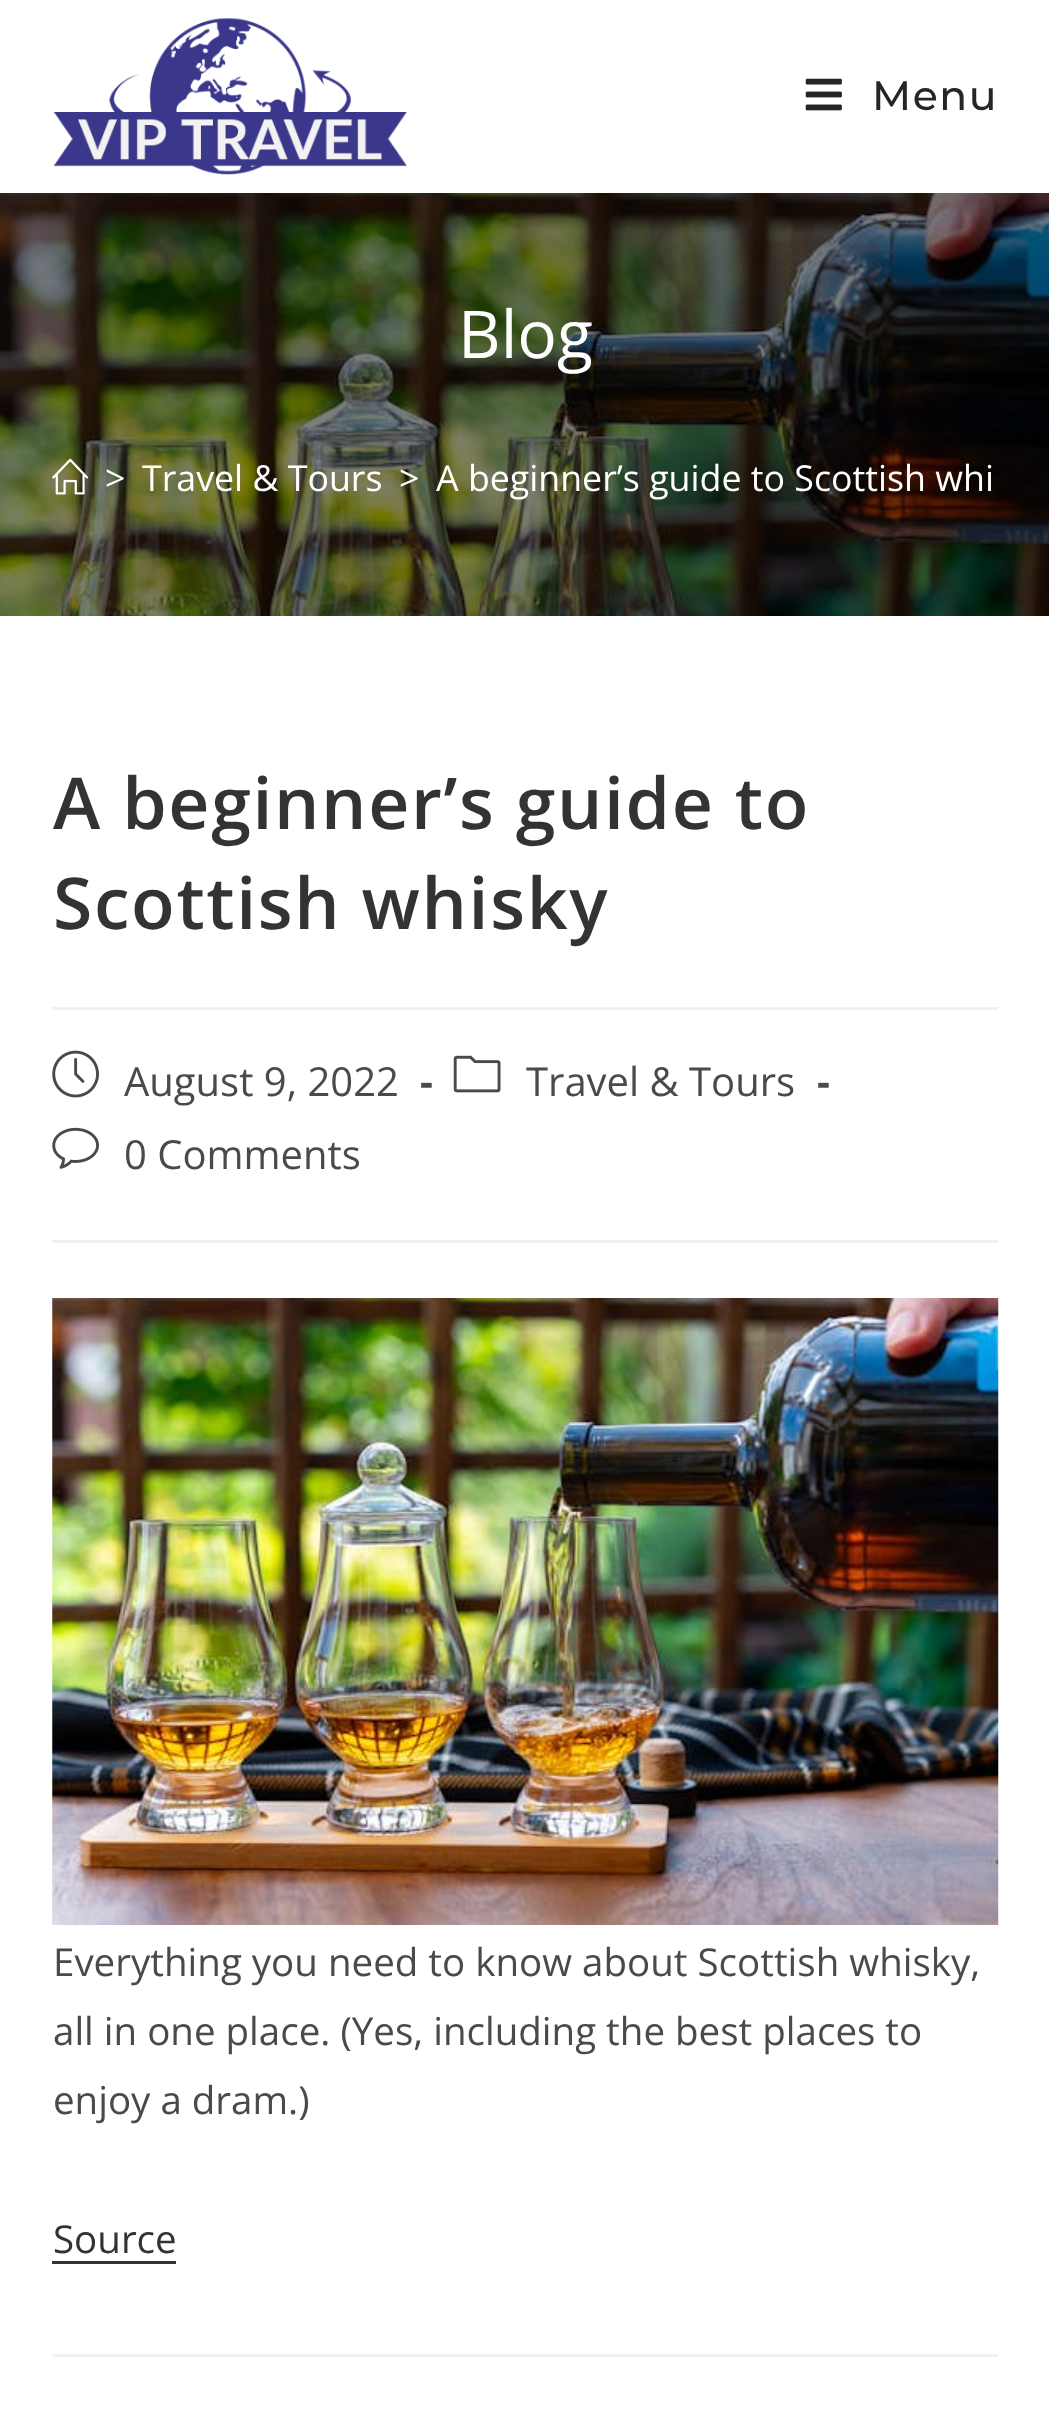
<svg xmlns="http://www.w3.org/2000/svg" width="1049" height="2429" viewBox="0 0 1049 2429">
  <rect width="100%" height="100%" fill="#ffffff"/>
  <image x="53" y="18" width="354" height="157" href="img1.png"/>
  <image x="805" y="78" width="37" height="33" href="img2.png"/>
  <text x="872" y="110" font-family="Montserrat" font-size="41" font-weight="100" letter-spacing="1.5" fill="#252525">Menu</text>
  <image x="0" y="193" width="1049" height="423" href="img3.png"/>
  <text x="458" y="358" font-family="Open Sans" font-size="66" fill="#ffffff">Blog</text>
  <image x="52" y="458" width="37" height="37" href="img4.png"/>
  <text x="105" y="491" font-family="Open Sans" font-size="35.75" fill="#ffffff">&gt;</text>
  <text x="142" y="491" font-family="Open Sans" font-size="35.75" fill="#ffffff">Travel &amp; Tours</text>
  <text x="399" y="491" font-family="Open Sans" font-size="35.75" fill="#ffffff">&gt;</text>
  <text x="436" y="491" font-family="Open Sans" font-size="35.75" fill="#ffffff">A beginner’s guide to Scottish whi</text>
  <rect x="52" y="1007" width="946" height="3" fill="#f1f1f1"/>
  <text x="53" y="829" font-family="Open Sans" font-size="71.5" font-weight="600" letter-spacing="1.65" fill="#333333">A beginner’s guide to</text>
  <text x="53" y="929" font-family="Open Sans" font-size="71.5" font-weight="600" letter-spacing="1.65" fill="#333333">Scottish whisky</text>
  <rect x="52" y="1240" width="946" height="3" fill="#f1f1f1"/>
  <image x="52" y="1050" width="47" height="48" href="img5.png"/>
  <text x="124" y="1096" font-family="Open Sans" font-size="40" fill="#4a4a4a">August 9, 2022</text>
  <text x="420" y="1096" font-family="Open Sans" font-size="40" font-weight="bold" fill="#4a4a4a">-</text>
  <image x="453" y="1055" width="48" height="38" href="img6.png"/>
  <text x="526" y="1096" font-family="Open Sans" font-size="40" fill="#4a4a4a">Travel &amp; Tours</text>
  <text x="817" y="1096" font-family="Open Sans" font-size="40" font-weight="bold" fill="#4a4a4a">-</text>
  <image x="52" y="1127" width="47" height="42" href="img7.png"/>
  <text x="124" y="1169" font-family="Open Sans" font-size="40" fill="#4a4a4a">0 Comments</text>
  <image x="52" y="1298" width="947" height="627" href="img8.png"/>
  <text x="53" y="1976" font-family="Open Sans" font-size="38.5" fill="#4a4a4a">Everything you need to know about Scottish whisky,</text>
  <text x="53" y="2045" font-family="Open Sans" font-size="38.5" fill="#4a4a4a">all in one place. (Yes, including the best places to</text>
  <text x="53" y="2114" font-family="Open Sans" font-size="38.5" fill="#4a4a4a">enjoy a dram.)</text>
  <text x="53" y="2253" font-family="Open Sans" font-size="38.5" fill="#333333">Source</text>
  <rect x="52" y="2261" width="124" height="3" fill="#333333"/>
  <rect x="52" y="2354" width="946" height="3" fill="#f1f1f1"/>
</svg>
